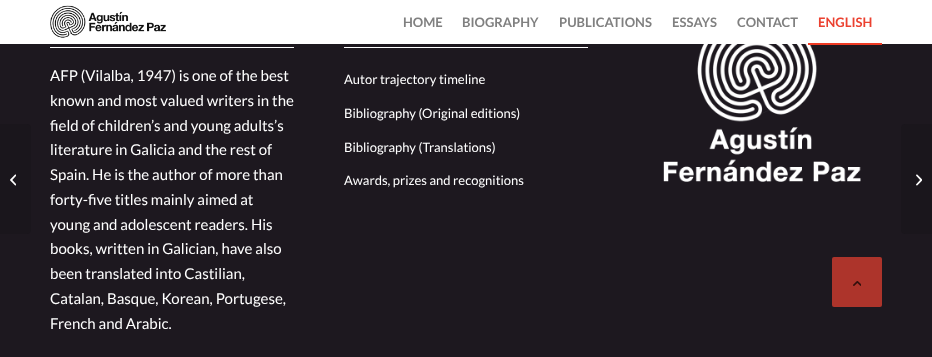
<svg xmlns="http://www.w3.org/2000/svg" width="932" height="357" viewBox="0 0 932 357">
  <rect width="100%" height="100%" fill="#1d181f"/>
  <rect x="0" y="0" width="932" height="44" fill="#ffffff"/>
  <image x="50" y="5" width="116" height="33" href="img1.png"/>
  <text x="403" y="27" font-family="Lato" font-size="13" font-weight="bold" fill="#808080">HOME</text>
  <text x="462" y="27" font-family="Lato" font-size="13" font-weight="bold" fill="#808080">BIOGRAPHY</text>
  <text x="559" y="27" font-family="Lato" font-size="13" font-weight="bold" fill="#808080">PUBLICATIONS</text>
  <text x="672" y="27" font-family="Lato" font-size="13" font-weight="bold" fill="#808080">ESSAYS</text>
  <text x="737" y="27" font-family="Lato" font-size="13" font-weight="bold" fill="#808080">CONTACT</text>
  <text x="818" y="27" font-family="Lato" font-size="13" font-weight="bold" fill="#eb4130">ENGLISH</text>
  <image x="663" y="44" width="198" height="138" href="img3.png"/>
  <rect x="808" y="43" width="74" height="2" fill="#ef3b24"/>
  <path d="M0 124H27C29 124 31 126 31 128V230C31 232 29 234 27 234H0Z" fill="#1a161c"/>
  <image x="10" y="174" width="6" height="12" href="img2.png"/>
  <rect x="50" y="47" width="244" height="1" fill="#ffffff"/>
  <text x="50" y="81" font-family="Lato" font-size="15" fill="#ffffff">AFP (Vilalba, 1947) is one of the best</text>
  <text x="50" y="106" font-family="Lato" font-size="15" fill="#ffffff">known and most valued writers in the</text>
  <text x="50" y="131" font-family="Lato" font-size="15" fill="#ffffff">field of children’s and young adults’s</text>
  <text x="50" y="155" font-family="Lato" font-size="15" fill="#ffffff">literature in Galicia and the rest of</text>
  <text x="50" y="180" font-family="Lato" font-size="15" fill="#ffffff">Spain. He is the author of more than</text>
  <text x="50" y="205" font-family="Lato" font-size="15" fill="#ffffff">forty-five titles mainly aimed at</text>
  <text x="50" y="230" font-family="Lato" font-size="15" fill="#ffffff">young and adolescent readers. His</text>
  <text x="50" y="254" font-family="Lato" font-size="15" fill="#ffffff">books, written in Galician, have also</text>
  <text x="50" y="279" font-family="Lato" font-size="15" fill="#ffffff">been translated into Castilian,</text>
  <text x="50" y="304" font-family="Lato" font-size="15" fill="#ffffff">Catalan, Basque, Korean, Portugese,</text>
  <text x="50" y="329" font-family="Lato" font-size="15" fill="#ffffff">French and Arabic.</text>
  <rect x="344" y="47" width="244" height="1" fill="#ffffff"/>
  <text x="344" y="84" font-family="Lato" font-size="13" fill="#ffffff">Autor trajectory timeline</text>
  <text x="344" y="118" font-family="Lato" font-size="13" fill="#ffffff">Bibliography (Original editions)</text>
  <text x="344" y="152" font-family="Lato" font-size="13" fill="#ffffff">Bibliography (Translations)</text>
  <text x="344" y="185" font-family="Lato" font-size="13" fill="#ffffff">Awards, prizes and recognitions</text>
  <path d="M905 124H932V234H905C903 234 901 232 901 230V128C901 126 903 124 905 124Z" fill="#1a161c"/>
  <image x="916" y="174" width="6" height="12" href="img4.png"/>
  <rect x="832" y="257" width="50" height="50" rx="2" fill="#ad342b"/>
  <image x="853" y="281" width="8" height="5" href="img5.png"/>
</svg>
